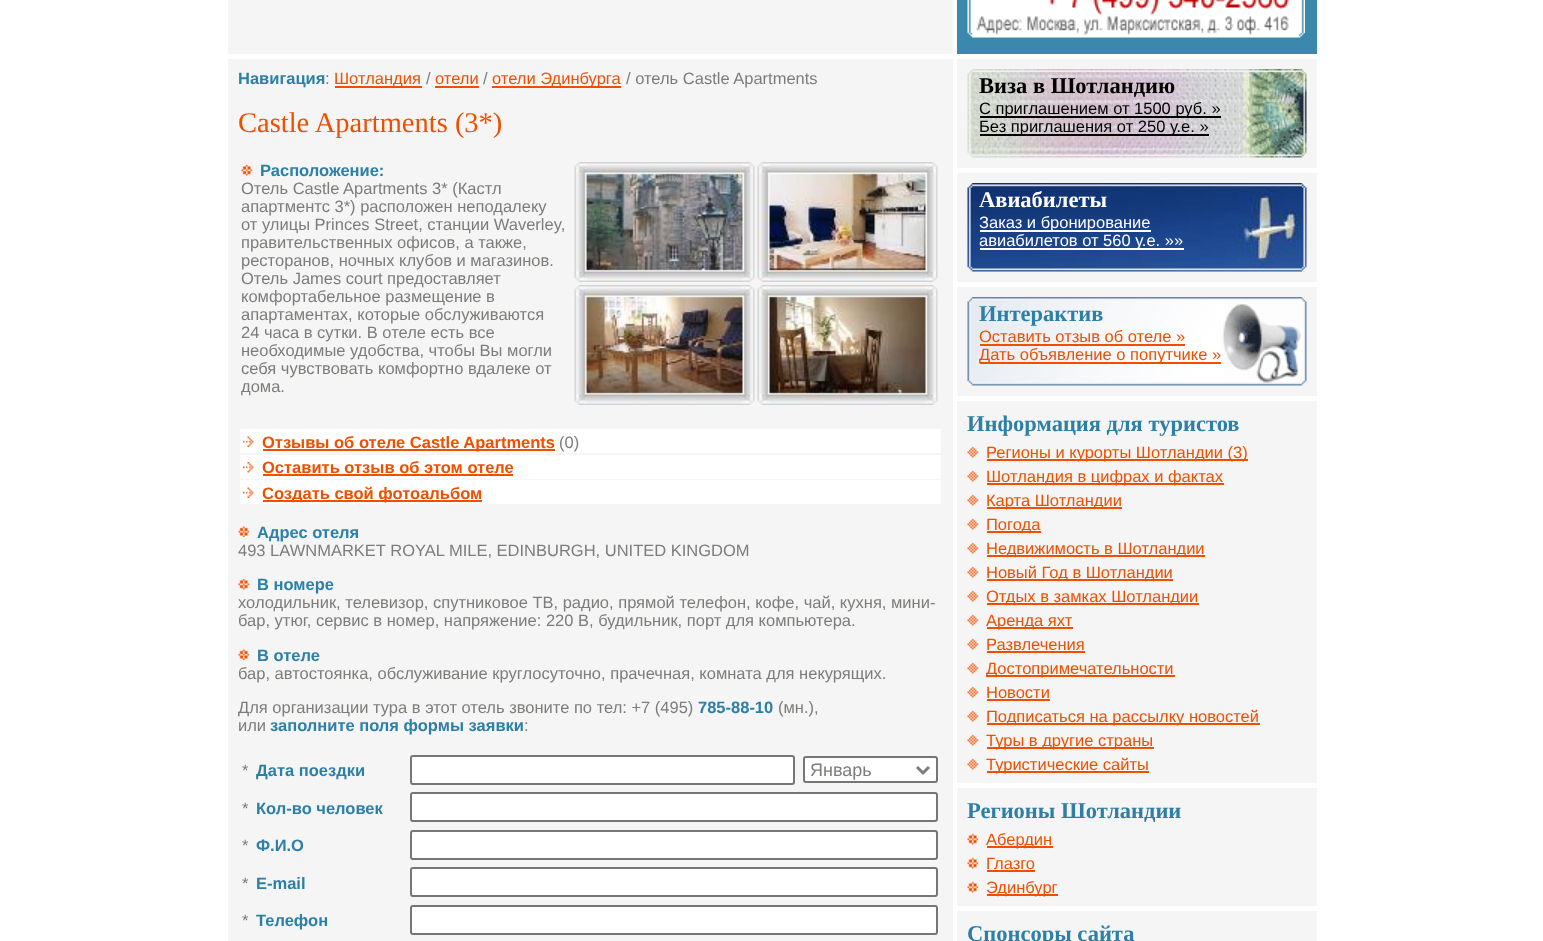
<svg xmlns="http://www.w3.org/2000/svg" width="1543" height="941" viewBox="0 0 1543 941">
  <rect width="100%" height="100%" fill="#ffffff"/>
  <rect x="228" y="0" width="725" height="54" fill="#f5f5f5"/>
  <rect x="957" y="0" width="360" height="54" fill="#3c88ac"/>
  <image x="967" y="0" width="338" height="38" href="img1.png"/>
  <rect x="228" y="59" width="725" height="882" fill="#f5f5f5"/>
  <text x="238" y="84" font-family="Liberation Sans" font-size="16.5" font-weight="bold" fill="#2c7fa6">Навигация</text>
  <text x="325" y="84" font-family="Liberation Sans" font-size="16.5" fill="#7c7c7b">:</text>
  <rect x="335" y="86" width="87" height="2" fill="#f04f00"/>
  <text x="334" y="84" font-family="Liberation Sans" font-size="16.5" fill="#f04f00">Шотландия</text>
  <text x="426" y="84" font-family="Liberation Sans" font-size="16.5" fill="#7c7c7b">/</text>
  <text x="435" y="84" font-family="Liberation Sans" font-size="16.5" fill="#f04f00">отели</text>
  <rect x="435" y="86" width="44" height="2" fill="#f04f00"/>
  <text x="483" y="84" font-family="Liberation Sans" font-size="16.5" fill="#7c7c7b">/</text>
  <rect x="492" y="86" width="129" height="2" fill="#f04f00"/>
  <text x="492" y="84" font-family="Liberation Sans" font-size="16.5" fill="#f04f00">отели Эдинбурга</text>
  <text x="626" y="84" font-family="Liberation Sans" font-size="16.5" fill="#7c7c7b">/ отель Castle Apartments</text>
  <text x="238" y="132" font-family="Liberation Serif" font-size="28.5" fill="#f04f00">Castle Apartments (3*)</text>
  <image x="241" y="165" width="12" height="11" href="img2.png"/>
  <text x="260" y="176" font-family="Liberation Sans" font-size="16.5" font-weight="bold" fill="#2c7fa6">Расположение:</text>
  <text x="241" y="194" font-family="Liberation Sans" font-size="16.5" fill="#7c7c7b">Отель Castle Apartments 3* (Кастл</text>
  <text x="241" y="212" font-family="Liberation Sans" font-size="16.5" fill="#7c7c7b">апартментс 3*) расположен неподалеку</text>
  <text x="241" y="230" font-family="Liberation Sans" font-size="16.5" fill="#7c7c7b">от улицы Princes Street, станции Waverley,</text>
  <text x="241" y="248" font-family="Liberation Sans" font-size="16.5" fill="#7c7c7b">правительственных офисов, а также,</text>
  <text x="241" y="266" font-family="Liberation Sans" font-size="16.5" fill="#7c7c7b">ресторанов, ночных клубов и магазинов.</text>
  <text x="241" y="284" font-family="Liberation Sans" font-size="16.5" fill="#7c7c7b">Отель James court предоставляет</text>
  <text x="241" y="302" font-family="Liberation Sans" font-size="16.5" fill="#7c7c7b">комфортабельное размещение в</text>
  <text x="241" y="320" font-family="Liberation Sans" font-size="16.5" fill="#7c7c7b">апартаментах, которые обслуживаются</text>
  <text x="241" y="338" font-family="Liberation Sans" font-size="16.5" fill="#7c7c7b">24 часа в сутки. В отеле есть все</text>
  <text x="241" y="356" font-family="Liberation Sans" font-size="16.5" fill="#7c7c7b">необходимые удобства, чтобы Вы могли</text>
  <text x="241" y="374" font-family="Liberation Sans" font-size="16.5" fill="#7c7c7b">себя чувствовать комфортно вдалеке от</text>
  <text x="241" y="392" font-family="Liberation Sans" font-size="16.5" fill="#7c7c7b">дома.</text>
  <image x="574" y="162" width="181" height="120" href="img3.png"/>
  <image x="757" y="162" width="181" height="120" href="img4.png"/>
  <image x="574" y="285" width="181" height="120" href="img5.png"/>
  <image x="757" y="285" width="181" height="120" href="img6.png"/>
  <rect x="240" y="429" width="701" height="24" fill="#ffffff"/>
  <image x="243" y="436" width="11" height="11" href="img7.png"/>
  <rect x="263" y="449" width="292" height="2" fill="#f04f00"/>
  <text x="262" y="448" font-family="Liberation Sans" font-size="16.5" font-weight="bold" fill="#f04f00">Отзывы об отеле Castle Apartments</text>
  <text x="559" y="448" font-family="Liberation Sans" font-size="16.5" fill="#7c7c7b">(0)</text>
  <rect x="240" y="455" width="701" height="24" fill="#ffffff"/>
  <image x="243" y="462" width="11" height="11" href="img8.png"/>
  <text x="262" y="473" font-family="Liberation Sans" font-size="16.5" font-weight="bold" fill="#f04f00">Оставить отзыв об этом отеле</text>
  <rect x="263" y="474" width="250" height="2" fill="#f04f00"/>
  <rect x="240" y="480" width="701" height="24" fill="#ffffff"/>
  <image x="243" y="487" width="11" height="11" href="img7.png"/>
  <rect x="263" y="500" width="219" height="2" fill="#f04f00"/>
  <text x="262" y="499" font-family="Liberation Sans" font-size="16.5" font-weight="bold" fill="#f04f00">Создать свой фотоальбом</text>
  <image x="238" y="526" width="12" height="11" href="img9.png"/>
  <text x="257" y="538" font-family="Liberation Sans" font-size="16.5" font-weight="bold" fill="#2c7fa6">Адрес отеля</text>
  <text x="238" y="556" font-family="Liberation Sans" font-size="16.5" fill="#7c7c7b">493 LAWNMARKET ROYAL MILE, EDINBURGH, UNITED KINGDOM</text>
  <image x="238" y="579" width="12" height="11" href="img2.png"/>
  <text x="257" y="590" font-family="Liberation Sans" font-size="16.5" font-weight="bold" fill="#2c7fa6">В номере</text>
  <text x="238" y="608" font-family="Liberation Sans" font-size="16.5" fill="#7c7c7b">холодильник, телевизор, спутниковое ТВ, радио, прямой телефон, кофе, чай, кухня, мини-</text>
  <text x="238" y="626" font-family="Liberation Sans" font-size="16.5" fill="#7c7c7b">бар, утюг, сервис в номер, напряжение: 220 В, будильник, порт для компьютера.</text>
  <image x="238" y="649" width="12" height="11" href="img9.png"/>
  <text x="257" y="661" font-family="Liberation Sans" font-size="16.5" font-weight="bold" fill="#2c7fa6">В отеле</text>
  <text x="238" y="679" font-family="Liberation Sans" font-size="16.5" fill="#7c7c7b">бар, автостоянка, обслуживание круглосуточно, прачечная, комната для некурящих.</text>
  <text x="238" y="713" font-family="Liberation Sans" font-size="16.5" fill="#7c7c7b">Для организации тура в этот отель звоните по тел: +7 (495)</text>
  <text x="698" y="713" font-family="Liberation Sans" font-size="16.5" font-weight="bold" fill="#2c7fa6">785-88-10</text>
  <text x="778" y="713" font-family="Liberation Sans" font-size="16.5" fill="#7c7c7b">(мн.),</text>
  <text x="238" y="731" font-family="Liberation Sans" font-size="16.5" fill="#7c7c7b">или</text>
  <text x="270" y="731" font-family="Liberation Sans" font-size="16.5" font-weight="bold" fill="#2c7fa6">заполните поля формы заявки</text>
  <text x="524" y="731" font-family="Liberation Sans" font-size="16.5" fill="#7c7c7b">:</text>
  <text x="242" y="776" font-family="Liberation Sans" font-size="16.5" fill="#7c7c7b">*</text>
  <text x="256" y="776" font-family="Liberation Sans" font-size="16.5" font-weight="bold" fill="#2c7fa6">Дата поездки</text>
  <rect x="411" y="756" width="383" height="28" rx="2" fill="#ffffff" stroke="#767676" stroke-width="2"/>
  <rect x="804" y="757" width="133" height="25" rx="2" fill="#ffffff" stroke="#767676" stroke-width="2"/>
  <path d="M917 767L923 773L929 767" fill="none" stroke="#7c7c7b" stroke-width="3"/>
  <text x="810" y="776" font-family="Liberation Sans" font-size="18" fill="#7c7c7b">Январь</text>
  <text x="242" y="814" font-family="Liberation Sans" font-size="16.5" fill="#7c7c7b">*</text>
  <text x="256" y="814" font-family="Liberation Sans" font-size="16.5" font-weight="bold" fill="#2c7fa6">Кол-во человек</text>
  <rect x="411" y="793" width="526" height="28" rx="2" fill="#ffffff" stroke="#767676" stroke-width="2"/>
  <text x="242" y="851" font-family="Liberation Sans" font-size="16.5" fill="#7c7c7b">*</text>
  <text x="256" y="851" font-family="Liberation Sans" font-size="16.5" font-weight="bold" fill="#2c7fa6">Ф.И.О</text>
  <rect x="411" y="831" width="526" height="28" rx="2" fill="#ffffff" stroke="#767676" stroke-width="2"/>
  <text x="242" y="889" font-family="Liberation Sans" font-size="16.5" fill="#7c7c7b">*</text>
  <text x="256" y="889" font-family="Liberation Sans" font-size="16.5" font-weight="bold" fill="#2c7fa6">E-mail</text>
  <rect x="411" y="868" width="526" height="28" rx="2" fill="#ffffff" stroke="#767676" stroke-width="2"/>
  <text x="242" y="926" font-family="Liberation Sans" font-size="16.5" fill="#7c7c7b">*</text>
  <text x="256" y="926" font-family="Liberation Sans" font-size="16.5" font-weight="bold" fill="#2c7fa6">Телефон</text>
  <rect x="411" y="906" width="526" height="28" rx="2" fill="#ffffff" stroke="#767676" stroke-width="2"/>
  <rect x="957" y="59" width="360" height="882" fill="#f5f5f5"/>
  <image x="967" y="69" width="340" height="89" href="img10.png"/>
  <text x="979" y="93" font-family="Liberation Serif" font-size="22.5" font-weight="bold" fill="#000000">Виза в Шотландию</text>
  <rect x="980" y="116" width="241" height="2" fill="#000000"/>
  <text x="979" y="114" font-family="Liberation Sans" font-size="16.5" fill="#000000">С приглашением от 1500 руб. »</text>
  <rect x="980" y="134" width="229" height="2" fill="#000000"/>
  <text x="979" y="132" font-family="Liberation Sans" font-size="16.5" fill="#000000">Без приглашения от 250 у.е. »</text>
  <rect x="957" y="168" width="360" height="5" fill="#ffffff"/>
  <image x="967" y="183" width="340" height="89" href="img11.png"/>
  <text x="979" y="207" font-family="Liberation Serif" font-size="22.5" font-weight="bold" fill="#ffffff">Авиабилеты</text>
  <rect x="980" y="230" width="171" height="2" fill="#ffffff"/>
  <text x="979" y="228" font-family="Liberation Sans" font-size="16.5" fill="#ffffff">Заказ и бронирование</text>
  <rect x="980" y="248" width="204" height="2" fill="#ffffff"/>
  <text x="979" y="246" font-family="Liberation Sans" font-size="16.5" fill="#ffffff">авиабилетов от 560 у.е. »»</text>
  <rect x="957" y="282" width="360" height="5" fill="#ffffff"/>
  <image x="967" y="297" width="340" height="89" href="img12.png"/>
  <text x="979" y="321" font-family="Liberation Serif" font-size="22.5" font-weight="bold" fill="#2c7fa6">Интерактив</text>
  <text x="979" y="342" font-family="Liberation Sans" font-size="16.5" fill="#f04f00">Оставить отзыв об отеле »</text>
  <rect x="980" y="344" width="205" height="2" fill="#f04f00"/>
  <rect x="980" y="362" width="241" height="2" fill="#f04f00"/>
  <text x="979" y="360" font-family="Liberation Sans" font-size="16.5" fill="#f04f00">Дать объявление о попутчике »</text>
  <rect x="957" y="396" width="360" height="5" fill="#ffffff"/>
  <text x="967" y="431" font-family="Liberation Serif" font-size="22.5" font-weight="bold" fill="#2c7fa6">Информация для туристов</text>
  <image x="967" y="446" width="12" height="12" href="img13.png"/>
  <rect x="987" y="459" width="261" height="2" fill="#f04f00"/>
  <text x="986" y="458" font-family="Liberation Sans" font-size="16.5" fill="#f04f00">Регионы и курорты Шотландии (3)</text>
  <image x="967" y="470" width="12" height="12" href="img13.png"/>
  <rect x="987" y="483" width="237" height="2" fill="#f04f00"/>
  <text x="986" y="482" font-family="Liberation Sans" font-size="16.5" fill="#f04f00">Шотландия в цифрах и фактах</text>
  <image x="967" y="494" width="12" height="12" href="img13.png"/>
  <rect x="987" y="507" width="135" height="2" fill="#f04f00"/>
  <text x="986" y="506" font-family="Liberation Sans" font-size="16.5" fill="#f04f00">Карта Шотландии</text>
  <image x="967" y="518" width="12" height="12" href="img13.png"/>
  <rect x="987" y="531" width="54" height="2" fill="#f04f00"/>
  <text x="986" y="530" font-family="Liberation Sans" font-size="16.5" fill="#f04f00">Погода</text>
  <image x="967" y="542" width="12" height="12" href="img13.png"/>
  <rect x="987" y="555" width="218" height="2" fill="#f04f00"/>
  <text x="986" y="554" font-family="Liberation Sans" font-size="16.5" fill="#f04f00">Недвижимость в Шотландии</text>
  <image x="967" y="566" width="12" height="12" href="img13.png"/>
  <rect x="987" y="579" width="186" height="2" fill="#f04f00"/>
  <text x="986" y="578" font-family="Liberation Sans" font-size="16.5" fill="#f04f00">Новый Год в Шотландии</text>
  <image x="967" y="590" width="12" height="12" href="img13.png"/>
  <rect x="987" y="603" width="212" height="2" fill="#f04f00"/>
  <text x="986" y="602" font-family="Liberation Sans" font-size="16.5" fill="#f04f00">Отдых в замках Шотландии</text>
  <image x="967" y="614" width="12" height="12" href="img13.png"/>
  <rect x="987" y="627" width="86" height="2" fill="#f04f00"/>
  <text x="986" y="626" font-family="Liberation Sans" font-size="16.5" fill="#f04f00">Аренда яхт</text>
  <image x="967" y="638" width="12" height="12" href="img13.png"/>
  <text x="986" y="650" font-family="Liberation Sans" font-size="16.5" fill="#f04f00">Развлечения</text>
  <rect x="987" y="651" width="98" height="2" fill="#f04f00"/>
  <image x="967" y="662" width="12" height="12" href="img13.png"/>
  <rect x="987" y="675" width="188" height="2" fill="#f04f00"/>
  <text x="986" y="674" font-family="Liberation Sans" font-size="16.5" fill="#f04f00">Достопримечательности</text>
  <image x="967" y="686" width="12" height="12" href="img13.png"/>
  <text x="986" y="698" font-family="Liberation Sans" font-size="16.5" fill="#f04f00">Новости</text>
  <rect x="987" y="699" width="63" height="2" fill="#f04f00"/>
  <image x="967" y="710" width="12" height="12" href="img13.png"/>
  <rect x="987" y="723" width="273" height="2" fill="#f04f00"/>
  <text x="986" y="722" font-family="Liberation Sans" font-size="16.5" fill="#f04f00">Подписаться на рассылку новостей</text>
  <image x="967" y="734" width="12" height="12" href="img13.png"/>
  <rect x="987" y="747" width="167" height="2" fill="#f04f00"/>
  <text x="986" y="746" font-family="Liberation Sans" font-size="16.5" fill="#f04f00">Туры в другие страны</text>
  <image x="967" y="758" width="12" height="12" href="img13.png"/>
  <rect x="987" y="771" width="162" height="2" fill="#f04f00"/>
  <text x="986" y="770" font-family="Liberation Sans" font-size="16.5" fill="#f04f00">Туристические сайты</text>
  <rect x="957" y="783" width="360" height="5" fill="#ffffff"/>
  <text x="967" y="818" font-family="Liberation Serif" font-size="22.5" font-weight="bold" fill="#2c7fa6">Регионы Шотландии</text>
  <image x="967" y="833" width="12" height="12" href="img14.png"/>
  <rect x="987" y="846" width="66" height="2" fill="#f04f00"/>
  <text x="986" y="845" font-family="Liberation Sans" font-size="16.5" fill="#f04f00">Абердин</text>
  <image x="967" y="857" width="12" height="12" href="img14.png"/>
  <text x="986" y="869" font-family="Liberation Sans" font-size="16.5" fill="#f04f00">Глазго</text>
  <rect x="987" y="870" width="48" height="2" fill="#f04f00"/>
  <image x="967" y="881" width="12" height="12" href="img14.png"/>
  <rect x="987" y="894" width="71" height="2" fill="#f04f00"/>
  <text x="986" y="893" font-family="Liberation Sans" font-size="16.5" fill="#f04f00">Эдинбург</text>
  <rect x="957" y="906" width="360" height="5" fill="#ffffff"/>
  <text x="967" y="941" font-family="Liberation Serif" font-size="22.5" font-weight="bold" fill="#2c7fa6">Спонсоры сайта</text>
</svg>
